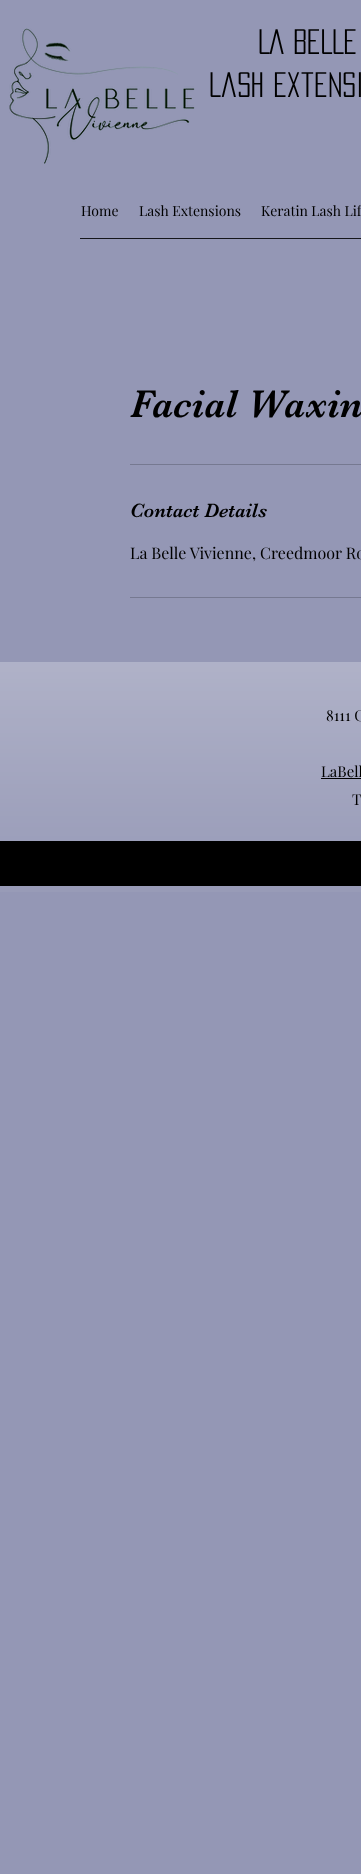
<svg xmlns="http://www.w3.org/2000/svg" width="361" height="1874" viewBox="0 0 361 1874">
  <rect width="100%" height="100%" fill="#9497b5"/>
  <image x="9" y="28" width="186" height="136" href="img1.png"/>
  <text x="258" y="54" font-family="'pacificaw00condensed'" font-size="31" fill="#000000">LA BELLE</text>
  <text x="209" y="97" font-family="'pacificaw00condensed'" font-size="31" fill="#000000">Lash Extensi</text>
  <text x="81" y="216" font-family="Playfair Display" font-size="14" fill="#000000">Home</text>
  <text x="139" y="216" font-family="Playfair Display" font-size="14" fill="#000000">Lash Extensions</text>
  <text x="261" y="216" font-family="Playfair Display" font-size="14" fill="#000000">Keratin Lash Lif</text>
  <rect x="80" y="238" width="281" height="1" fill="#16171b"/>
  <text x="130" y="417" font-family="'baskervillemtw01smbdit'" font-size="40" fill="#000000">Facial Waxin</text>
  <rect x="130" y="464" width="231" height="1" fill="#767991"/>
  <text x="130" y="517" font-family="'baskervillemtw01smbdit'" font-size="20" fill="#000000">Contact Details</text>
  <text x="130" y="559" font-family="Playfair Display" font-size="16" fill="#000000">La Belle Vivienne, Creedmoor Ro</text>
  <rect x="130" y="597" width="231" height="1" fill="#767991"/>
  <image x="0" y="662" width="361" height="230" href="img2.png"/>
  <text x="326" y="721" font-family="Playfair Display" font-size="15" fill="#000000">8111 C</text>
  <text x="321" y="777" font-family="Playfair Display" font-size="15" fill="#000000">LaBell</text>
  <rect x="321" y="778" width="40" height="1" fill="#000000"/>
  <text x="352" y="805" font-family="Playfair Display" font-size="15" fill="#000000">T</text>
  <rect x="0" y="841" width="361" height="45" fill="#000000"/>
</svg>
